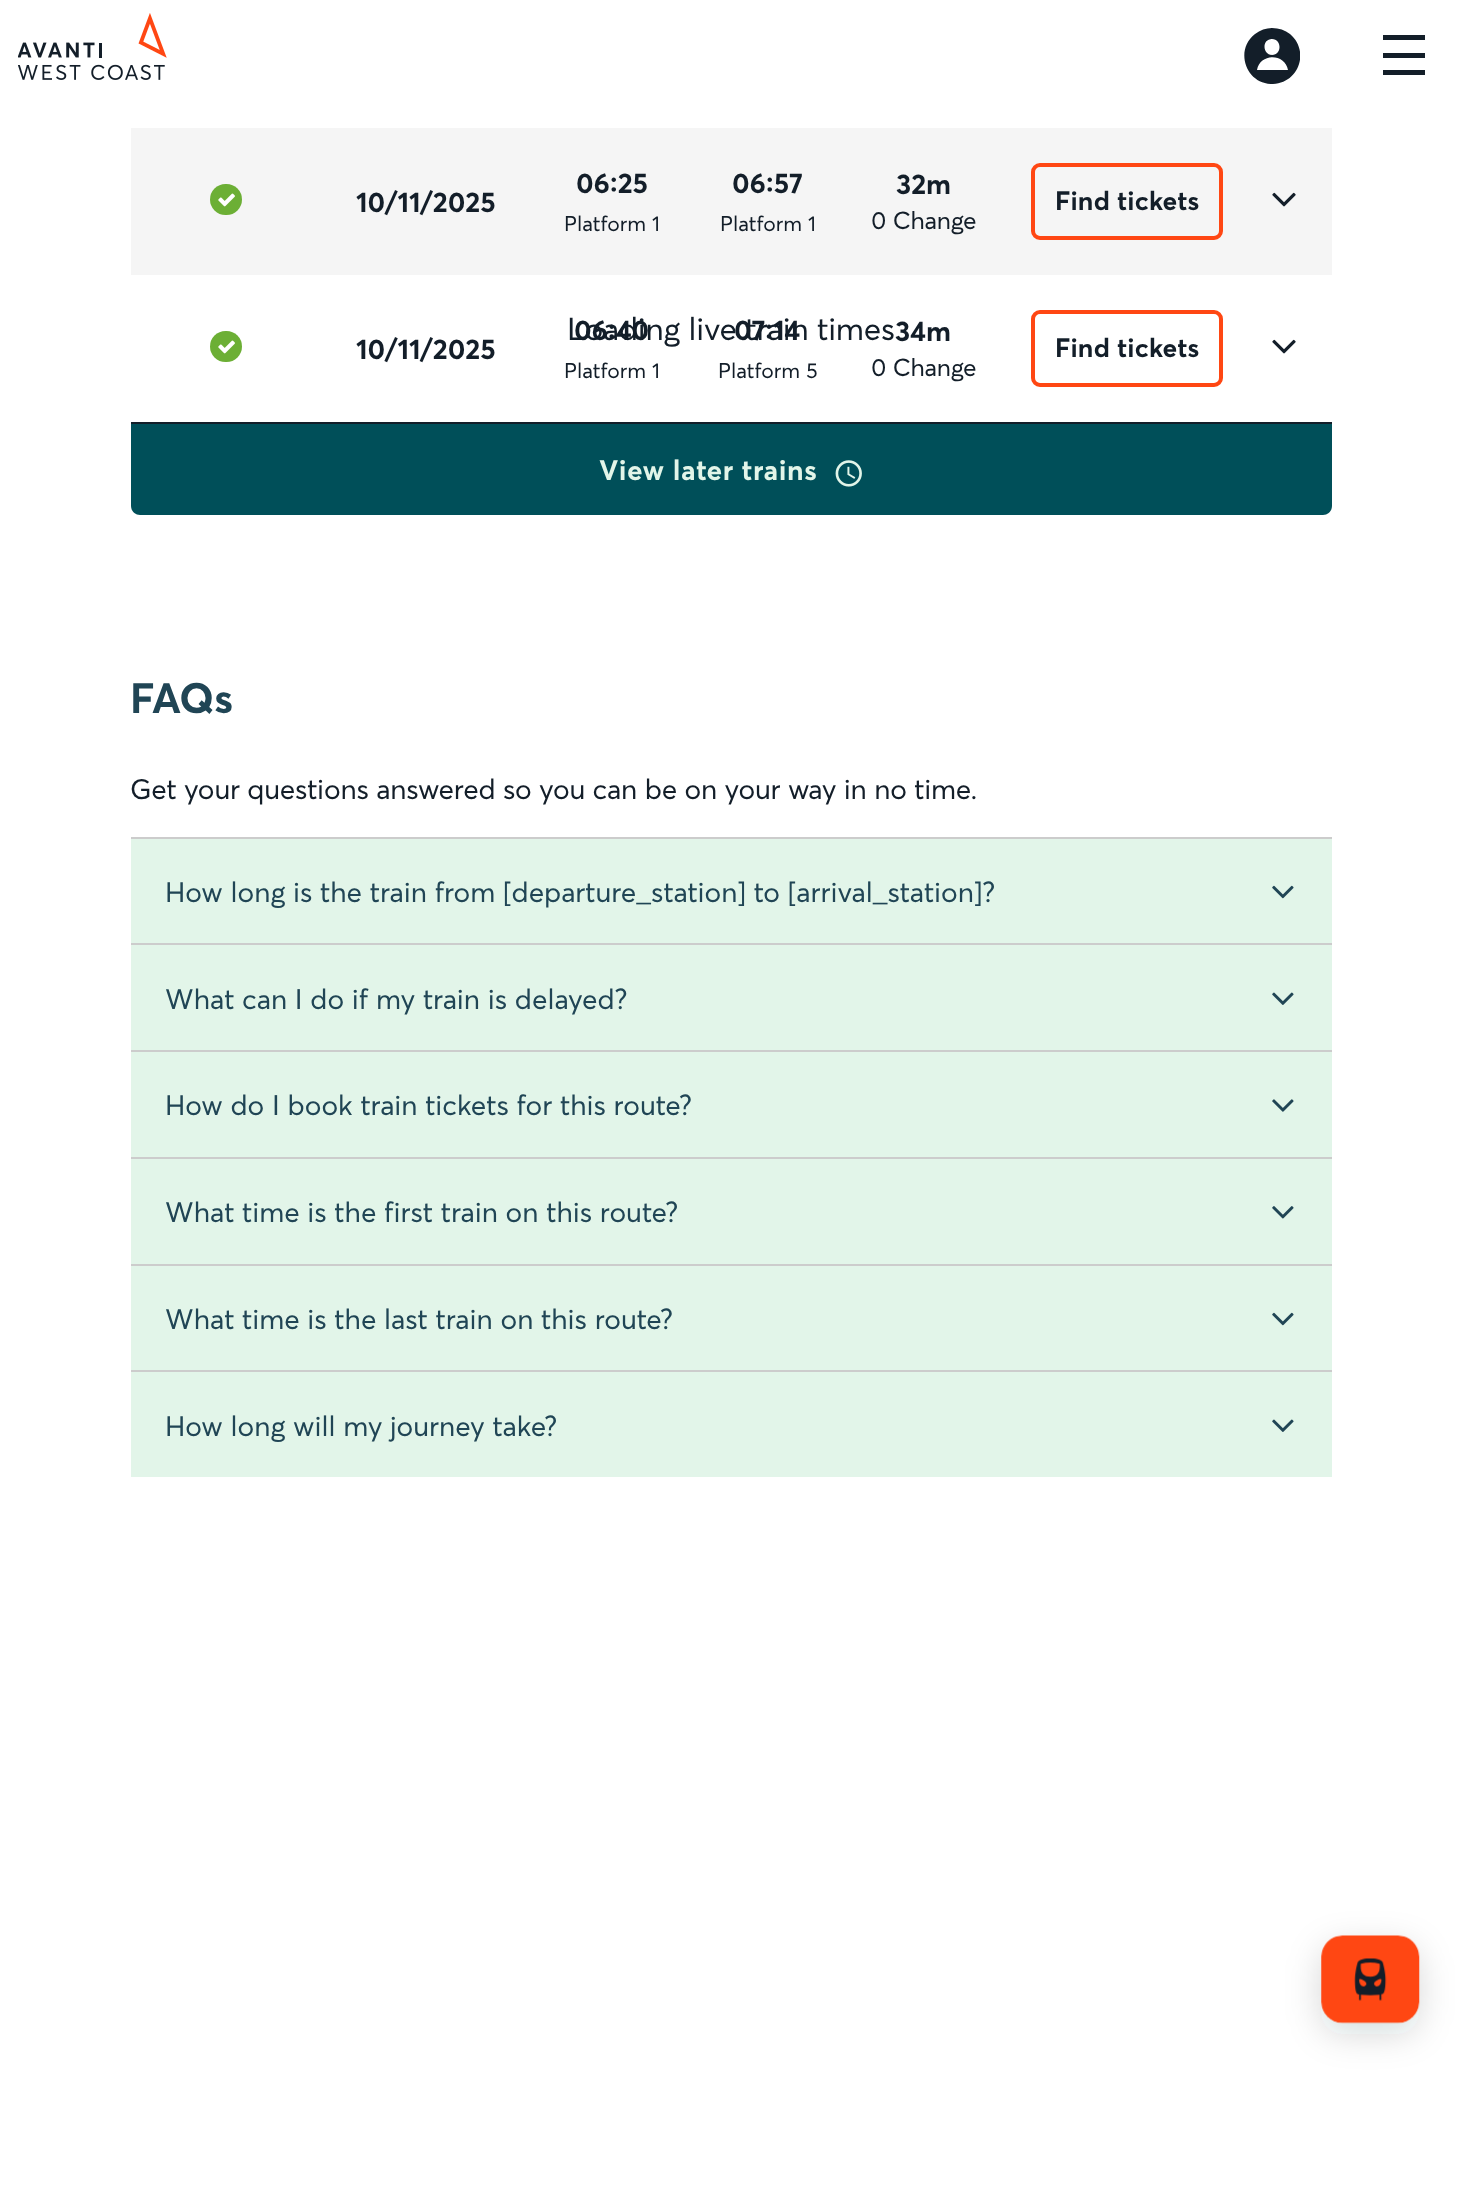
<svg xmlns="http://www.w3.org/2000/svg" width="1461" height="2198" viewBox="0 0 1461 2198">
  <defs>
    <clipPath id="clip1"><rect x="1244" y="28" width="56" height="56"/></clipPath>
    <filter id="blur1" x="-50%" y="-200%" width="200%" height="500%"><feGaussianBlur stdDeviation="17.5"/></filter>
  </defs>
  <rect width="100%" height="100%" fill="#ffffff"/>
  <image x="18" y="13" width="149" height="67" href="img1.png"/>
  <g clip-path="url(#clip1)">
    <path d="M1272 28C1266 28 1260 30 1255 34C1234 50 1246 85 1273 84C1299 83 1310 51 1290 34C1285 30 1279 28 1272 28ZM1272 39C1282 39 1282 55 1272 55C1262 54 1262 39 1272 39ZM1257 70C1260 53 1285 53 1288 70Z" fill="#131e29"/>
  </g>
  <rect x="1383" y="35" width="42" height="5" fill="#131e29"/>
  <rect x="1383" y="70" width="42" height="5" fill="#131e29"/>
  <rect x="1383" y="53" width="42" height="5" fill="#131e29"/>
  <rect x="131" y="422" width="1201" height="2" fill="#131e29"/>
  <rect x="131" y="128" width="1201" height="147" fill="#f5f5f5"/>
  <rect x="210" y="184" width="32" height="31" rx="15.5" fill="#6caf35"/>
  <image x="218" y="193" width="17" height="14" href="img2.png"/>
  <text x="356" y="212" font-family="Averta" font-size="28" font-weight="bold" fill="#131e29">10/11/2025</text>
  <text x="576" y="193" font-family="Averta" font-size="28" font-weight="bold" fill="#131e29">06:25</text>
  <text x="564" y="231" font-family="Averta" font-size="21" fill="#131e29">Platform 1</text>
  <text x="732" y="193" font-family="Averta" font-size="28" font-weight="bold" fill="#131e29">06:57</text>
  <text x="720" y="231" font-family="Averta" font-size="21" fill="#131e29">Platform 1</text>
  <text x="896" y="194" font-family="Averta" font-size="28" font-weight="bold" fill="#131e29">32m</text>
  <text x="871" y="229" font-family="Averta" font-size="24.5" letter-spacing="-0.18" fill="#131e29">0 Change</text>
  <rect x="1033" y="165" width="188" height="73" rx="7" fill="none" stroke="#ff4713" stroke-width="4"/>
  <text x="1055" y="210" font-family="Averta" font-size="26.25" font-weight="bold" letter-spacing="0.25" fill="#131e29">Find tickets</text>
  <image x="1272" y="192" width="24" height="15" href="img3.png"/>
  <text x="574" y="340" font-family="Averta" font-size="28" font-weight="bold" fill="#131e29">06:40</text>
  <text x="734" y="340" font-family="Averta" font-size="28" font-weight="bold" fill="#131e29">07:14</text>
  <text x="567" y="340" font-family="Averta" font-size="31.5" letter-spacing="-0.18" fill="#131e29">Loading live train times</text>
  <rect x="210" y="331" width="32" height="31" rx="15.5" fill="#6caf35"/>
  <image x="218" y="340" width="17" height="14" href="img2.png"/>
  <text x="356" y="359" font-family="Averta" font-size="28" font-weight="bold" fill="#131e29">10/11/2025</text>
  <text x="564" y="378" font-family="Averta" font-size="21" fill="#131e29">Platform 1</text>
  <text x="718" y="378" font-family="Averta" font-size="21" fill="#131e29">Platform 5</text>
  <text x="895" y="341" font-family="Averta" font-size="28" font-weight="bold" fill="#131e29">34m</text>
  <text x="871" y="376" font-family="Averta" font-size="24.5" letter-spacing="-0.18" fill="#131e29">0 Change</text>
  <rect x="1033" y="312" width="188" height="73" rx="7" fill="none" stroke="#ff4713" stroke-width="4"/>
  <text x="1055" y="357" font-family="Averta" font-size="26.25" font-weight="bold" letter-spacing="0.25" fill="#131e29">Find tickets</text>
  <image x="1272" y="339" width="24" height="15" href="img4.png"/>
  <path d="M131 424H1332V506C1332 511 1328 515 1323 515H140C135 515 131 511 131 506Z" fill="#004f59"/>
  <text x="599" y="480" font-family="Averta" font-size="28" font-weight="bold" letter-spacing="0.6" fill="#e2f5e9">View later trains</text>
  <image x="835" y="460" width="27" height="27" href="img5.png"/>
  <text x="130" y="713" font-family="Averta" font-size="42" font-weight="bold" letter-spacing="-0.18" fill="#204555">FAQs</text>
  <text x="130" y="799" font-family="Averta" font-size="28" letter-spacing="-0.18" fill="#131e29">Get your questions answered so you can be on your way in no time.</text>
  <rect x="131" y="839" width="1201" height="104" fill="#e2f5e9"/>
  <rect x="131" y="837" width="1201" height="2" fill="#cccccc"/>
  <text x="165" y="902" font-family="Averta" font-size="28" fill="#204555">How long is the train from [departure_station] to [arrival_station]?</text>
  <image x="1272" y="885" width="22" height="14" href="img6.png"/>
  <rect x="131" y="945" width="1201" height="105" fill="#e2f5e9"/>
  <rect x="131" y="943" width="1201" height="2" fill="#cccccc"/>
  <text x="165" y="1009" font-family="Averta" font-size="28" fill="#204555">What can I do if my train is delayed?</text>
  <image x="1272" y="992" width="22" height="13" href="img7.png"/>
  <rect x="131" y="1052" width="1201" height="105" fill="#e2f5e9"/>
  <rect x="131" y="1050" width="1201" height="2" fill="#cccccc"/>
  <text x="165" y="1115" font-family="Averta" font-size="28" fill="#204555">How do I book train tickets for this route?</text>
  <image x="1272" y="1099" width="22" height="13" href="img8.png"/>
  <rect x="131" y="1159" width="1201" height="105" fill="#e2f5e9"/>
  <rect x="131" y="1157" width="1201" height="2" fill="#cccccc"/>
  <text x="165" y="1222" font-family="Averta" font-size="28" fill="#204555">What time is the first train on this route?</text>
  <image x="1272" y="1206" width="22" height="13" href="img9.png"/>
  <rect x="131" y="1266" width="1201" height="104" fill="#e2f5e9"/>
  <rect x="131" y="1264" width="1201" height="2" fill="#cccccc"/>
  <text x="165" y="1329" font-family="Averta" font-size="28" fill="#204555">What time is the last train on this route?</text>
  <image x="1272" y="1312" width="22" height="14" href="img6.png"/>
  <rect x="131" y="1372" width="1201" height="105" fill="#e2f5e9"/>
  <rect x="131" y="1370" width="1201" height="2" fill="#cccccc"/>
  <text x="165" y="1436" font-family="Averta" font-size="28" fill="#204555">How long will my journey take?</text>
  <image x="1272" y="1419" width="22" height="13" href="img10.png"/>
  <rect x="1321" y="1946" width="98" height="88" rx="21" fill="#131e29" fill-opacity="0.16" filter="url(#blur1)"/>
  <image x="1321" y="1935" width="99" height="89" href="img11.png"/>
</svg>
